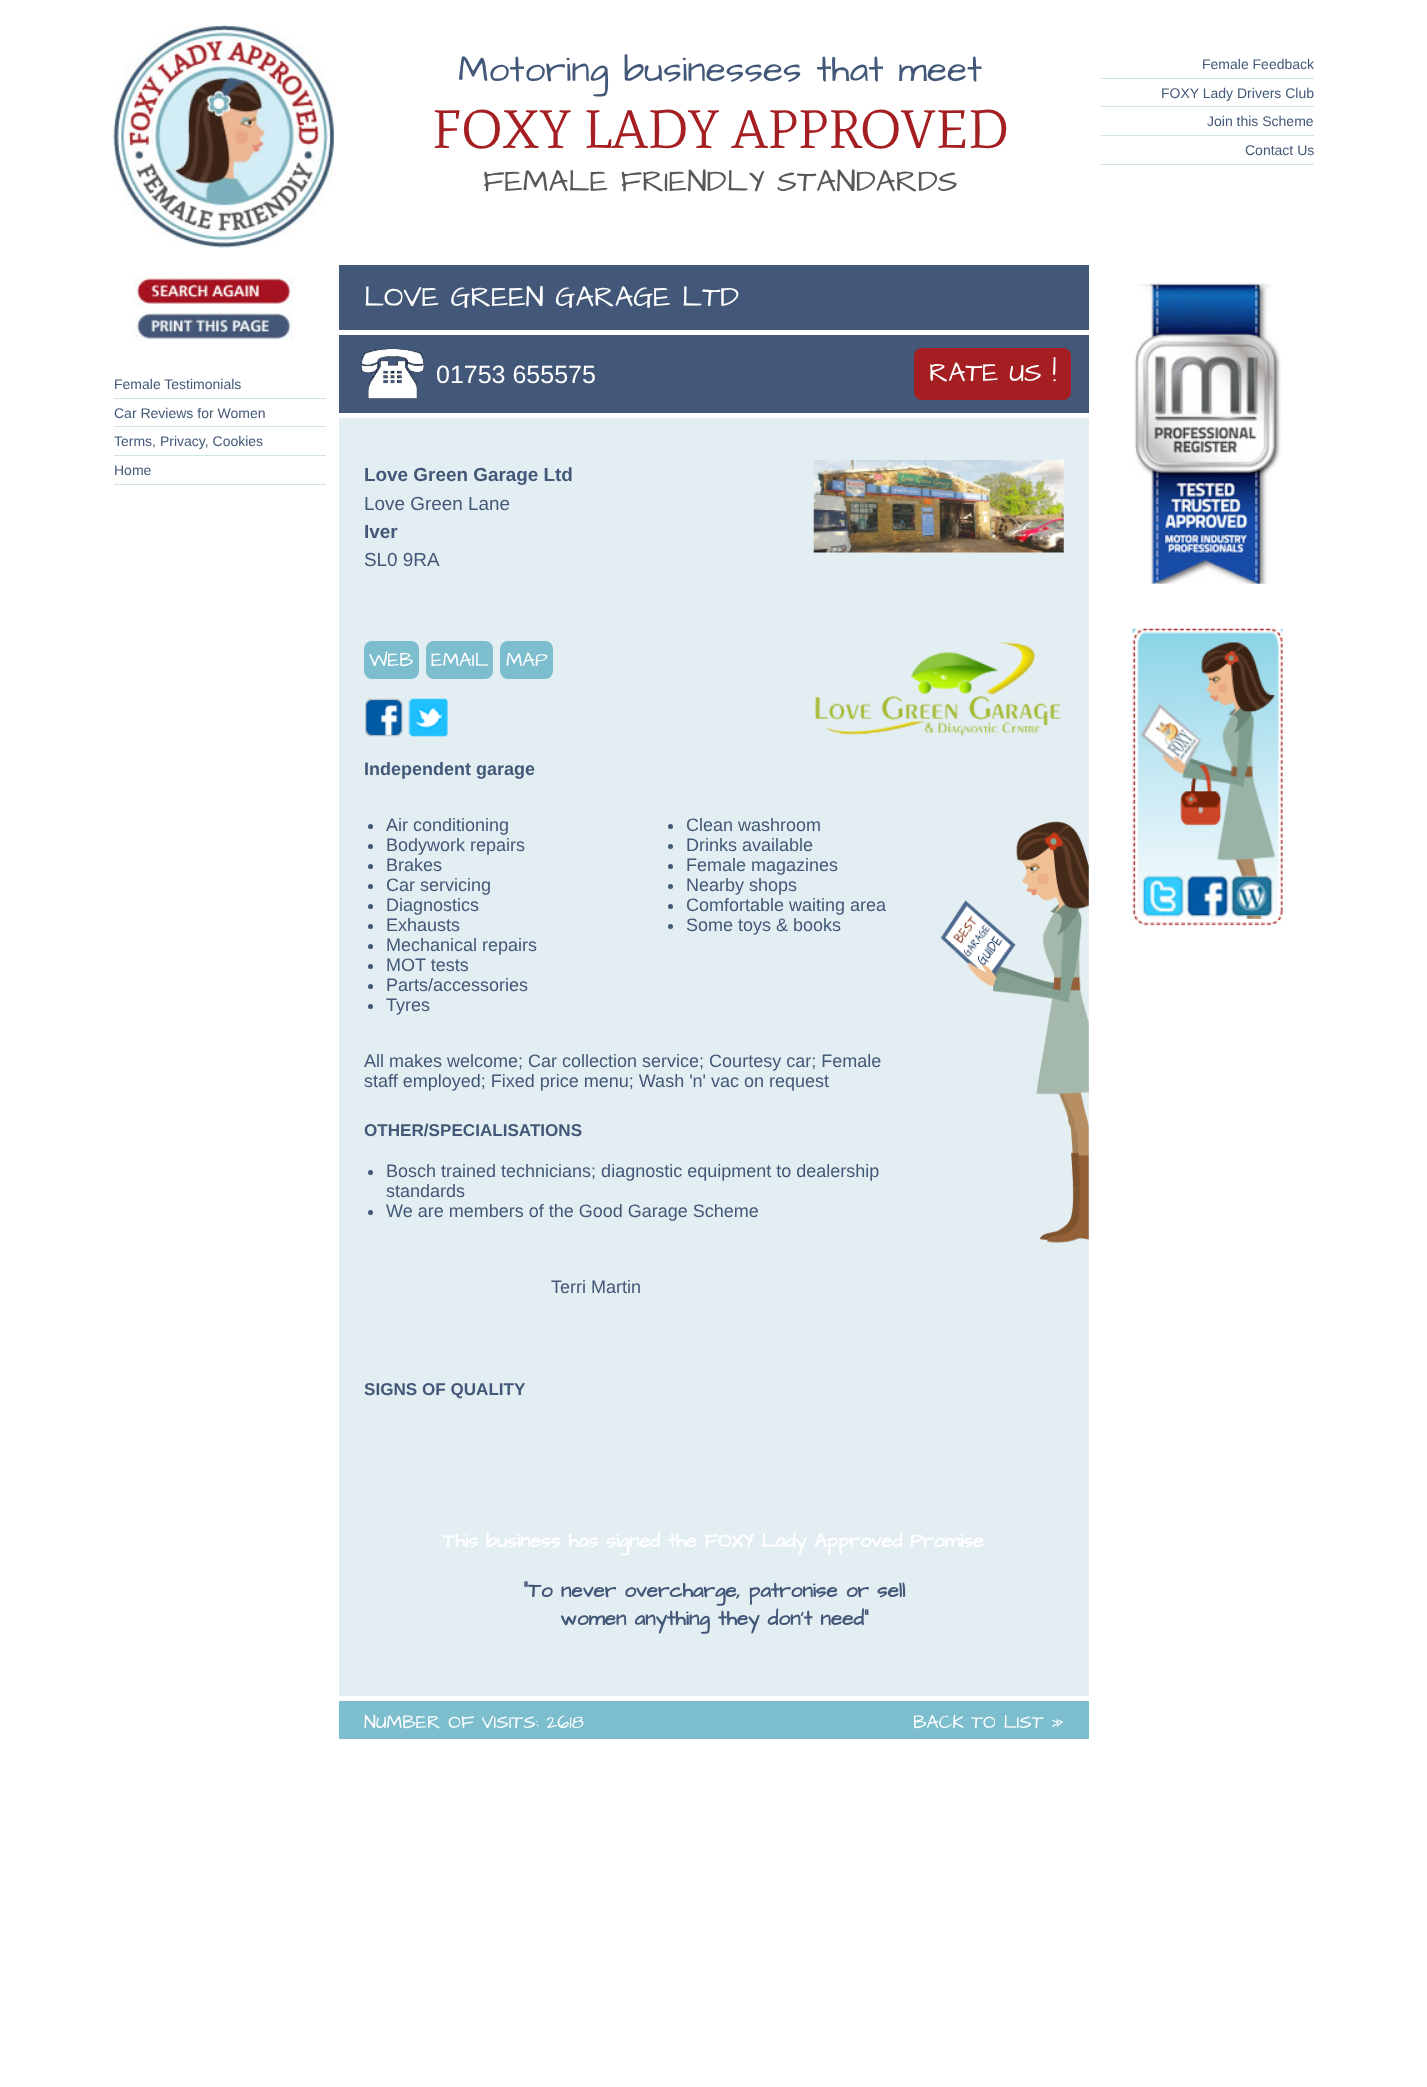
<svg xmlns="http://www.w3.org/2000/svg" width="1427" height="2087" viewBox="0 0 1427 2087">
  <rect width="100%" height="100%" fill="#ffffff"/>
  <image x="113" y="25" width="221" height="223" href="img1.png"/>
  <text x="458" y="81" font-family="Architects Daughter" font-size="37" fill="#435878">Motoring businesses that meet</text>
  <text x="432" y="148" font-family="Mate" font-size="54" fill="#a51e22">FOXY LADY APPROVED</text>
  <text x="483" y="191" font-family="Architects Daughter" font-size="31" fill="#585858">FEMALE FRIENDLY STANDARDS</text>
  <rect x="1101" y="78" width="213" height="1" fill="#d0e3e9"/>
  <text x="1202" y="69" font-family="Liberation Sans" font-size="14" fill="#435878">Female Feedback</text>
  <rect x="1101" y="106" width="213" height="1" fill="#d0e3e9"/>
  <text x="1161" y="98" font-family="Liberation Sans" font-size="14" fill="#435878">FOXY Lady Drivers Club</text>
  <rect x="1101" y="135" width="213" height="1" fill="#d0e3e9"/>
  <text x="1207" y="126" font-family="Liberation Sans" font-size="14" fill="#435878">Join this Scheme</text>
  <rect x="1101" y="164" width="213" height="1" fill="#d0e3e9"/>
  <text x="1245" y="155" font-family="Liberation Sans" font-size="14" fill="#435878">Contact Us</text>
  <image x="134" y="277" width="160" height="28" href="img2.png"/>
  <image x="134" y="312" width="160" height="28" href="img3.png"/>
  <rect x="114" y="398" width="212" height="1" fill="#d0e3e9"/>
  <text x="114" y="389" font-family="Liberation Sans" font-size="14" fill="#435878">Female Testimonials</text>
  <rect x="114" y="426" width="212" height="1" fill="#d0e3e9"/>
  <text x="114" y="418" font-family="Liberation Sans" font-size="14" fill="#435878">Car Reviews for Women</text>
  <rect x="114" y="455" width="212" height="1" fill="#d0e3e9"/>
  <text x="114" y="446" font-family="Liberation Sans" font-size="14" fill="#435878">Terms, Privacy, Cookies</text>
  <rect x="114" y="484" width="212" height="1" fill="#d0e3e9"/>
  <text x="114" y="475" font-family="Liberation Sans" font-size="14" fill="#435878">Home</text>
  <rect x="339" y="265" width="750" height="65" fill="#435878"/>
  <text x="364" y="306" font-family="Architects Daughter" font-size="29" fill="#ffffff">LOVE GREEN GARAGE LTD</text>
  <rect x="339" y="335" width="750" height="78" fill="#435878"/>
  <image x="361" y="348" width="63" height="51" href="img4.png"/>
  <text x="436" y="383" font-family="Liberation Sans" font-size="25" fill="#ffffff">01753 655575</text>
  <rect x="914" y="348" width="157" height="52" rx="8" fill="#a51e22"/>
  <text x="929" y="381" font-family="Architects Daughter" font-size="27" fill="#ffffff">RATE US !</text>
  <rect x="339" y="418" width="750" height="1278" fill="#e3eef2"/>
  <text x="364" y="481" font-family="Liberation Sans" font-size="18.9" font-weight="bold" fill="#435878">Love Green Garage Ltd</text>
  <text x="364" y="510" font-family="Liberation Sans" font-size="18.9" fill="#435878">Love Green Lane</text>
  <text x="364" y="538" font-family="Liberation Sans" font-size="18.9" font-weight="bold" fill="#435878">Iver</text>
  <text x="364" y="566" font-family="Liberation Sans" font-size="18.9" fill="#435878">SL0 9RA</text>
  <image x="813" y="460" width="251" height="93" href="img5.png"/>
  <rect x="364" y="641" width="55" height="38" rx="8" fill="#7cbdce"/>
  <text x="369" y="666" font-family="Architects Daughter" font-size="19.8" fill="#ffffff">WEB</text>
  <rect x="426" y="641" width="67" height="38" rx="8" fill="#7cbdce"/>
  <text x="431" y="666" font-family="Architects Daughter" font-size="19.8" fill="#ffffff">EMAIL</text>
  <rect x="500" y="641" width="53" height="38" rx="8" fill="#7cbdce"/>
  <text x="506" y="666" font-family="Architects Daughter" font-size="19.8" fill="#ffffff">MAP</text>
  <image x="365" y="698" width="38" height="39" href="img6.png"/>
  <image x="408" y="698" width="40" height="39" href="img7.png"/>
  <image x="815" y="642" width="247" height="95" href="img8.png"/>
  <text x="364" y="775" font-family="Liberation Sans" font-size="18" font-weight="bold" fill="#435878">Independent garage</text>
  <circle cx="370.5" cy="826.5" r="2.5" fill="#435878"/>
  <text x="386" y="831" font-family="Liberation Sans" font-size="18" fill="#435878">Air conditioning</text>
  <circle cx="370.5" cy="846.5" r="2.5" fill="#435878"/>
  <text x="386" y="851" font-family="Liberation Sans" font-size="18" fill="#435878">Bodywork repairs</text>
  <circle cx="370.5" cy="866.5" r="2.5" fill="#435878"/>
  <text x="386" y="871" font-family="Liberation Sans" font-size="18" fill="#435878">Brakes</text>
  <circle cx="370.5" cy="886.5" r="2.5" fill="#435878"/>
  <text x="386" y="891" font-family="Liberation Sans" font-size="18" fill="#435878">Car servicing</text>
  <circle cx="370.5" cy="906.5" r="2.5" fill="#435878"/>
  <text x="386" y="911" font-family="Liberation Sans" font-size="18" fill="#435878">Diagnostics</text>
  <circle cx="370.5" cy="926.5" r="2.5" fill="#435878"/>
  <text x="386" y="931" font-family="Liberation Sans" font-size="18" fill="#435878">Exhausts</text>
  <circle cx="370.5" cy="946.5" r="2.5" fill="#435878"/>
  <text x="386" y="951" font-family="Liberation Sans" font-size="18" fill="#435878">Mechanical repairs</text>
  <circle cx="370.5" cy="966.5" r="2.5" fill="#435878"/>
  <text x="386" y="971" font-family="Liberation Sans" font-size="18" fill="#435878">MOT tests</text>
  <circle cx="370.5" cy="986.5" r="2.5" fill="#435878"/>
  <text x="386" y="991" font-family="Liberation Sans" font-size="18" fill="#435878">Parts/accessories</text>
  <circle cx="370.5" cy="1006.5" r="2.5" fill="#435878"/>
  <text x="386" y="1011" font-family="Liberation Sans" font-size="18" fill="#435878">Tyres</text>
  <circle cx="670.5" cy="826.5" r="2.5" fill="#435878"/>
  <text x="686" y="831" font-family="Liberation Sans" font-size="18" fill="#435878">Clean washroom</text>
  <circle cx="670.5" cy="846.5" r="2.5" fill="#435878"/>
  <text x="686" y="851" font-family="Liberation Sans" font-size="18" fill="#435878">Drinks available</text>
  <circle cx="670.5" cy="866.5" r="2.5" fill="#435878"/>
  <text x="686" y="871" font-family="Liberation Sans" font-size="18" fill="#435878">Female magazines</text>
  <circle cx="670.5" cy="886.5" r="2.5" fill="#435878"/>
  <text x="686" y="891" font-family="Liberation Sans" font-size="18" fill="#435878">Nearby shops</text>
  <circle cx="670.5" cy="906.5" r="2.5" fill="#435878"/>
  <text x="686" y="911" font-family="Liberation Sans" font-size="18" fill="#435878">Comfortable waiting area</text>
  <circle cx="670.5" cy="926.5" r="2.5" fill="#435878"/>
  <text x="686" y="931" font-family="Liberation Sans" font-size="18" fill="#435878">Some toys &amp; books</text>
  <text x="364" y="1067" font-family="Liberation Sans" font-size="18" fill="#435878">All makes welcome; Car collection service; Courtesy car; Female</text>
  <text x="364" y="1087" font-family="Liberation Sans" font-size="18" fill="#435878">staff employed; Fixed price menu; Wash 'n' vac on request</text>
  <text x="364" y="1136" font-family="Liberation Sans" font-size="17.1" font-weight="bold" fill="#435878">OTHER/SPECIALISATIONS</text>
  <circle cx="370.5" cy="1172.5" r="2.5" fill="#435878"/>
  <text x="386" y="1177" font-family="Liberation Sans" font-size="18" fill="#435878">Bosch trained technicians; diagnostic equipment to dealership</text>
  <text x="386" y="1197" font-family="Liberation Sans" font-size="18" fill="#435878">standards</text>
  <circle cx="370.5" cy="1212.5" r="2.5" fill="#435878"/>
  <text x="386" y="1217" font-family="Liberation Sans" font-size="18" fill="#435878">We are members of the Good Garage Scheme</text>
  <text x="551" y="1293" font-family="Liberation Sans" font-size="18" fill="#435878">Terri Martin</text>
  <image x="940" y="821" width="149" height="422" href="img9.png"/>
  <text x="364" y="1395" font-family="Liberation Sans" font-size="17.1" font-weight="bold" fill="#435878">SIGNS OF QUALITY</text>
  <text x="443" y="1547" font-family="Architects Daughter" font-size="19.8" font-weight="bold" fill="#ffffff">This business has signed the FOXY Lady Approved Promise</text>
  <text x="523" y="1597" font-family="Architects Daughter" font-size="20.75" font-weight="bold" fill="#435878">"To never overcharge, patronise or sell</text>
  <text x="560" y="1625" font-family="Architects Daughter" font-size="20.75" font-weight="bold" fill="#435878">women anything they don't need"</text>
  <rect x="339" y="1701" width="750" height="38" fill="#7cbdce"/>
  <text x="364" y="1728" font-family="Architects Daughter" font-size="19" fill="#ffffff">NUMBER OF VISITS: 2618</text>
  <text x="913" y="1728" font-family="Architects Daughter" font-size="19" fill="#ffffff">BACK TO LIST »</text>
  <image x="1134" y="283" width="147" height="301" href="img10.png"/>
  <image x="1132" y="628" width="151" height="298" href="img11.png"/>
</svg>
